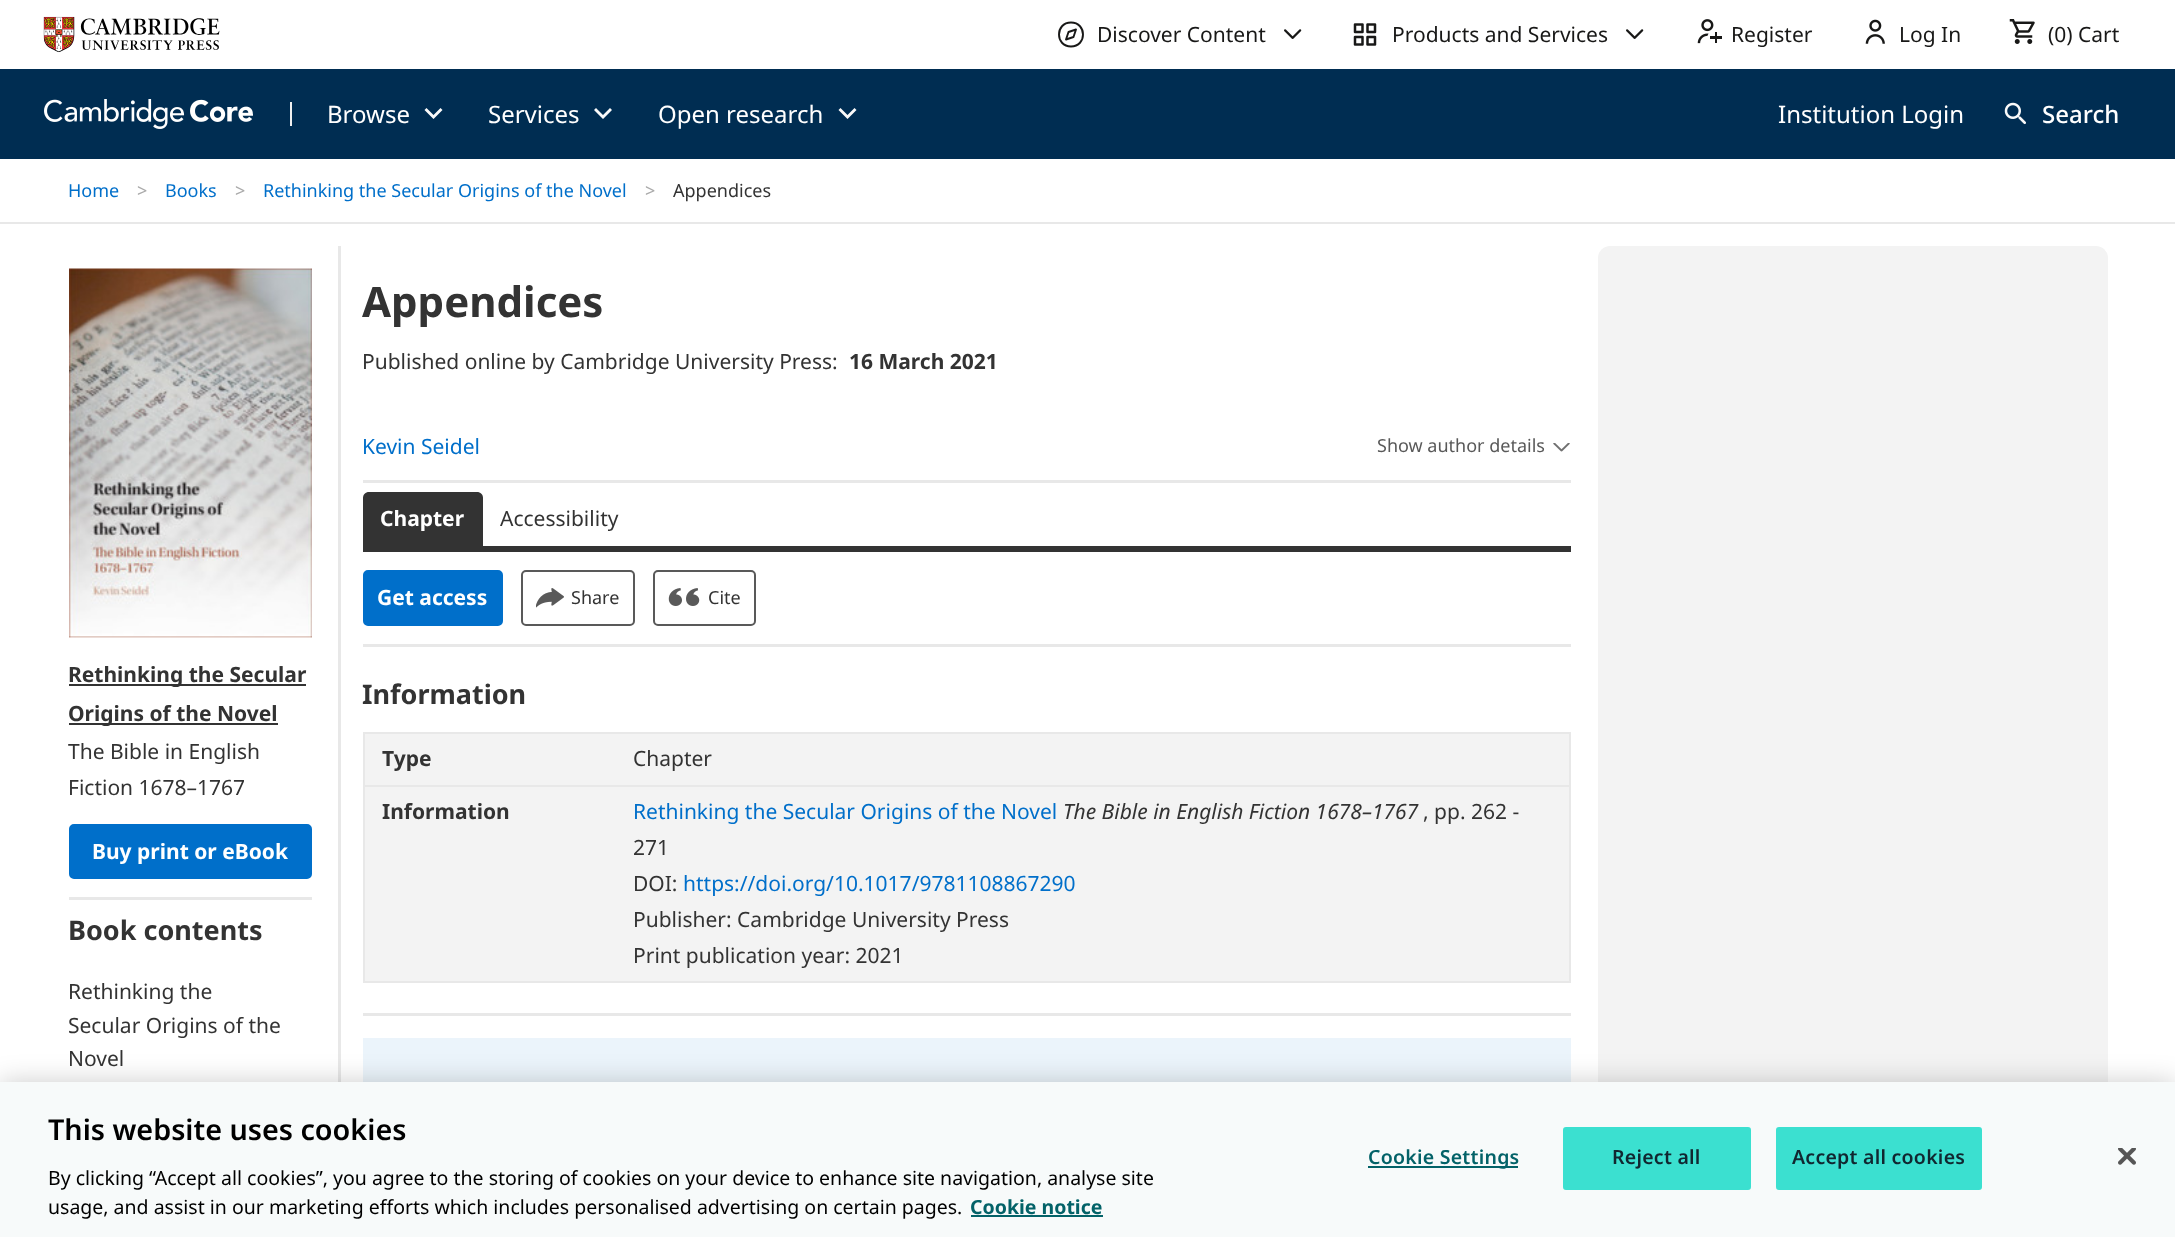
<svg xmlns="http://www.w3.org/2000/svg" width="2175" height="1237" viewBox="0 0 2175 1237">
  <defs>
    <filter id="blur1" x="-50%" y="-200%" width="200%" height="500%"><feGaussianBlur stdDeviation="13.5"/></filter>
  </defs>
  <rect width="100%" height="100%" fill="#ffffff"/>
  <image x="43" y="16" width="177" height="37" href="img1.png"/>
  <path d="M1071 46.5C1087 46.5 1087 22.5 1071 22.5C1055 22.5 1055 46.5 1071 46.5ZM1076 29.5L1073.5 37L1066 39.5L1068.5 32Z" fill="none" stroke="#181817" stroke-width="1.9" stroke-linecap="round" stroke-linejoin="round"/>
  <text x="1097" y="42" font-family="Noto Sans" font-size="21" fill="#181817">Discover Content</text>
  <image x="1284" y="29" width="18" height="10" href="img2.png"/>
  <image x="1353" y="23" width="24" height="23" href="img3.png"/>
  <text x="1392" y="42" font-family="Noto Sans" font-size="21" fill="#181817">Products and Services</text>
  <image x="1626" y="29" width="18" height="10" href="img2.png"/>
  <image x="1697" y="19" width="25" height="25" href="img4.png"/>
  <text x="1731" y="42" font-family="Noto Sans" font-size="21" fill="#181817">Register</text>
  <image x="1865" y="19" width="20" height="25" href="img5.png"/>
  <text x="1899" y="42" font-family="Noto Sans" font-size="21" fill="#181817">Log In</text>
  <image x="2009" y="19" width="26" height="25" href="img6.png"/>
  <text x="2048" y="42" font-family="Noto Sans" font-size="21" fill="#181817">(0) Cart</text>
  <rect x="0" y="69" width="2175" height="90" fill="#002d52"/>
  <image x="44" y="99" width="209" height="30" href="img7.png"/>
  <rect x="290" y="102" width="2" height="24" fill="#efefef"/>
  <text x="327" y="123" font-family="Noto Sans" font-size="24" fill="#ffffff">Browse</text>
  <path d="M433.5 119L424.5 110L426.5 108L433.5 115L440.5 108L442.5 110Z" fill="#fafafa"/>
  <text x="488" y="123" font-family="Noto Sans" font-size="24" fill="#ffffff">Services</text>
  <path d="M603 119L594 110L596 108L603 115L610 108L612 110Z" fill="#fafafa"/>
  <text x="658" y="123" font-family="Noto Sans" font-size="24" fill="#ffffff">Open research</text>
  <path d="M847.5 119L838.5 110L840.5 108L847.5 115L854.5 108L856.5 110Z" fill="#fafafa"/>
  <text x="1778" y="123" font-family="Noto Sans" font-size="24" fill="#ffffff">Institution Login</text>
  <image x="2004" y="102" width="22" height="23" href="img8.png"/>
  <text x="2042" y="123" font-family="Noto Sans" font-size="24" font-weight="500" fill="#ffffff">Search</text>
  <rect x="0" y="222" width="2175" height="2" fill="#e8e8e8"/>
  <text x="68" y="197" font-family="Noto Sans" font-size="18" fill="#006fca">Home</text>
  <text x="137" y="197" font-family="Noto Sans" font-size="18" fill="#aaaaaa">&gt;</text>
  <text x="165" y="197" font-family="Noto Sans" font-size="18" fill="#006fca">Books</text>
  <text x="235" y="197" font-family="Noto Sans" font-size="18" fill="#aaaaaa">&gt;</text>
  <text x="263" y="197" font-family="Noto Sans" font-size="18" fill="#006fca">Rethinking the Secular Origins of the Novel</text>
  <text x="645" y="197" font-family="Noto Sans" font-size="18" fill="#aaaaaa">&gt;</text>
  <text x="673" y="197" font-family="Noto Sans" font-size="18" fill="#333333">Appendices</text>
  <image x="69" y="268" width="243" height="370" href="img9.png"/>
  <rect x="69" y="684" width="237" height="2" fill="#333333"/>
  <text x="68" y="682" font-family="Noto Sans" font-size="21" font-weight="bold" fill="#333333">Rethinking the Secular</text>
  <rect x="69" y="723" width="209" height="2" fill="#333333"/>
  <text x="68" y="721" font-family="Noto Sans" font-size="21" font-weight="bold" fill="#333333">Origins of the Novel</text>
  <text x="68" y="759" font-family="Noto Sans" font-size="21" fill="#333333">The Bible in English</text>
  <text x="68" y="795" font-family="Noto Sans" font-size="21" fill="#333333">Fiction 1678–1767</text>
  <rect x="70" y="825" width="241" height="53" rx="4" fill="#006fca" stroke="#006fca" stroke-width="2"/>
  <text x="92" y="859" font-family="Noto Sans" font-size="21" font-weight="bold" fill="#ffffff">Buy print or eBook</text>
  <rect x="69" y="897" width="243" height="3" fill="#e8e8e8"/>
  <text x="68" y="940" font-family="Noto Sans" font-size="27" font-weight="bold" fill="#333333">Book contents</text>
  <text x="68" y="999" font-family="Noto Sans" font-size="21" fill="#333333">Rethinking the</text>
  <text x="68" y="1033" font-family="Noto Sans" font-size="21" fill="#333333">Secular Origins of the</text>
  <text x="68" y="1066" font-family="Noto Sans" font-size="21" fill="#333333">Novel</text>
  <rect x="338" y="246" width="3" height="836" fill="#e8e8e8"/>
  <text x="362" y="317" font-family="Noto Sans" font-size="42" font-weight="bold" fill="#333333">Appendices</text>
  <text x="362" y="369" font-family="Noto Sans" font-size="21" fill="#333333">Published online by Cambridge University Press:</text>
  <text x="849" y="369" font-family="Noto Sans" font-size="21" font-weight="bold" fill="#333333">16 March 2021</text>
  <text x="362" y="454" font-family="Noto Sans" font-size="21" fill="#006fca">Kevin Seidel</text>
  <text x="1377" y="452" font-family="Noto Sans" font-size="18" fill="#595959">Show author details</text>
  <image x="1553" y="443" width="17" height="9" href="img10.png"/>
  <rect x="363" y="480" width="1208" height="3" fill="#e8e8e8"/>
  <rect x="363" y="546" width="1208" height="6" fill="#333333"/>
  <path d="M369 492H477C480.5 492 483 494.5 483 498V546H363V498C363 494.5 365.5 492 369 492Z" fill="#333333"/>
  <text x="380" y="526" font-family="Noto Sans" font-size="21" font-weight="bold" fill="#ffffff">Chapter</text>
  <text x="500" y="526" font-family="Noto Sans" font-size="21" fill="#333333">Accessibility</text>
  <rect x="364" y="571" width="138" height="54" rx="4" fill="#006fca" stroke="#006fca" stroke-width="2"/>
  <text x="377" y="605" font-family="Noto Sans" font-size="21" font-weight="bold" fill="#ffffff">Get access</text>
  <rect x="522" y="571" width="112" height="54" rx="4" fill="none" stroke="#595959" stroke-width="2"/>
  <image x="536" y="588" width="28" height="20" href="img11.png"/>
  <text x="571" y="604" font-family="Noto Sans" font-size="18" fill="#333333">Share</text>
  <rect x="654" y="571" width="101" height="54" rx="4" fill="none" stroke="#595959" stroke-width="2"/>
  <image x="668" y="588" width="32" height="18" href="img12.png"/>
  <text x="708" y="604" font-family="Noto Sans" font-size="18" fill="#333333">Cite</text>
  <rect x="363" y="644" width="1208" height="3" fill="#e8e8e8"/>
  <text x="362" y="704" font-family="Noto Sans" font-size="27" font-weight="bold" fill="#333333">Information</text>
  <rect x="365" y="734" width="1204" height="247" fill="#f3f3f3"/>
  <rect x="363" y="732" width="1208" height="2" fill="#e8e8e8"/>
  <rect x="1569" y="732" width="2" height="251" fill="#e8e8e8"/>
  <rect x="363" y="732" width="2" height="251" fill="#e8e8e8"/>
  <rect x="365" y="785" width="1204" height="2" fill="#e8e8e8"/>
  <text x="382" y="766" font-family="Noto Sans" font-size="21" font-weight="bold" fill="#333333">Type</text>
  <text x="633" y="766" font-family="Noto Sans" font-size="21" fill="#333333">Chapter</text>
  <rect x="365" y="981" width="1204" height="2" fill="#e8e8e8"/>
  <text x="382" y="819" font-family="Noto Sans" font-size="21" font-weight="bold" fill="#333333">Information</text>
  <text x="633" y="819" font-family="Noto Sans" font-size="21" fill="#006fca">Rethinking the Secular Origins of the Novel</text>
  <text x="1063" y="819" font-family="Noto Sans" font-size="21" font-style="italic" fill="#333333">The Bible in English Fiction 1678–1767</text>
  <text x="1423" y="819" font-family="Noto Sans" font-size="21" fill="#333333">, pp. 262 -</text>
  <text x="633" y="855" font-family="Noto Sans" font-size="21" fill="#333333">271</text>
  <text x="633" y="891" font-family="Noto Sans" font-size="21" fill="#333333">DOI:</text>
  <text x="683" y="891" font-family="Noto Sans" font-size="21" fill="#006fca">https://doi.org/10.1017/9781108867290</text>
  <text x="633" y="927" font-family="Noto Sans" font-size="21" fill="#333333">Publisher: Cambridge University Press</text>
  <text x="633" y="963" font-family="Noto Sans" font-size="21" fill="#333333">Print publication year: 2021</text>
  <rect x="363" y="1013" width="1208" height="3" fill="#e8e8e8"/>
  <rect x="363" y="1038" width="1208" height="44" fill="#ebf4fb"/>
  <rect x="1598" y="246" width="510" height="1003" rx="12" fill="#f3f3f3"/>
  <rect x="0" y="1082" width="2175" height="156" fill="#000000" fill-opacity="0.2" filter="url(#blur1)"/>
  <rect x="0" y="1082" width="2175" height="155" fill="#f7fafa"/>
  <text x="48" y="1140" font-family="Noto Sans" font-size="28.75" font-weight="600" fill="#000000">This website uses cookies</text>
  <text x="48" y="1185" font-family="Noto Sans" font-size="19.5" fill="#000000">By clicking “Accept all cookies”, you agree to the storing of cookies on your device to enhance site navigation, analyse site</text>
  <text x="48" y="1214" font-family="Noto Sans" font-size="19.5" fill="#000000">usage, and assist in our marketing efforts which includes personalised advertising on certain pages.</text>
  <text x="970" y="1214" font-family="Noto Sans" font-size="19.5" font-weight="bold" fill="#036268">Cookie notice</text>
  <rect x="971" y="1215" width="132" height="2" fill="#036268"/>
  <rect x="1368" y="1166" width="150" height="2" fill="#036268"/>
  <text x="1368" y="1164" font-family="Noto Sans" font-size="19.5" font-weight="600" letter-spacing="0.25" fill="#036268">Cookie Settings</text>
  <rect x="1564" y="1128" width="186" height="61" rx="2" fill="#3be0d0" stroke="#3be0d0" stroke-width="2"/>
  <text x="1612" y="1164" font-family="Noto Sans" font-size="19.5" font-weight="600" letter-spacing="0.25" fill="#112730">Reject all</text>
  <rect x="1777" y="1128" width="204" height="61" rx="2" fill="#3be0d0" stroke="#3be0d0" stroke-width="2"/>
  <text x="1792" y="1164" font-family="Noto Sans" font-size="19.5" font-weight="600" letter-spacing="0.25" fill="#112730">Accept all cookies</text>
  <image x="2118" y="1148" width="18" height="17" href="img13.png"/>
</svg>
